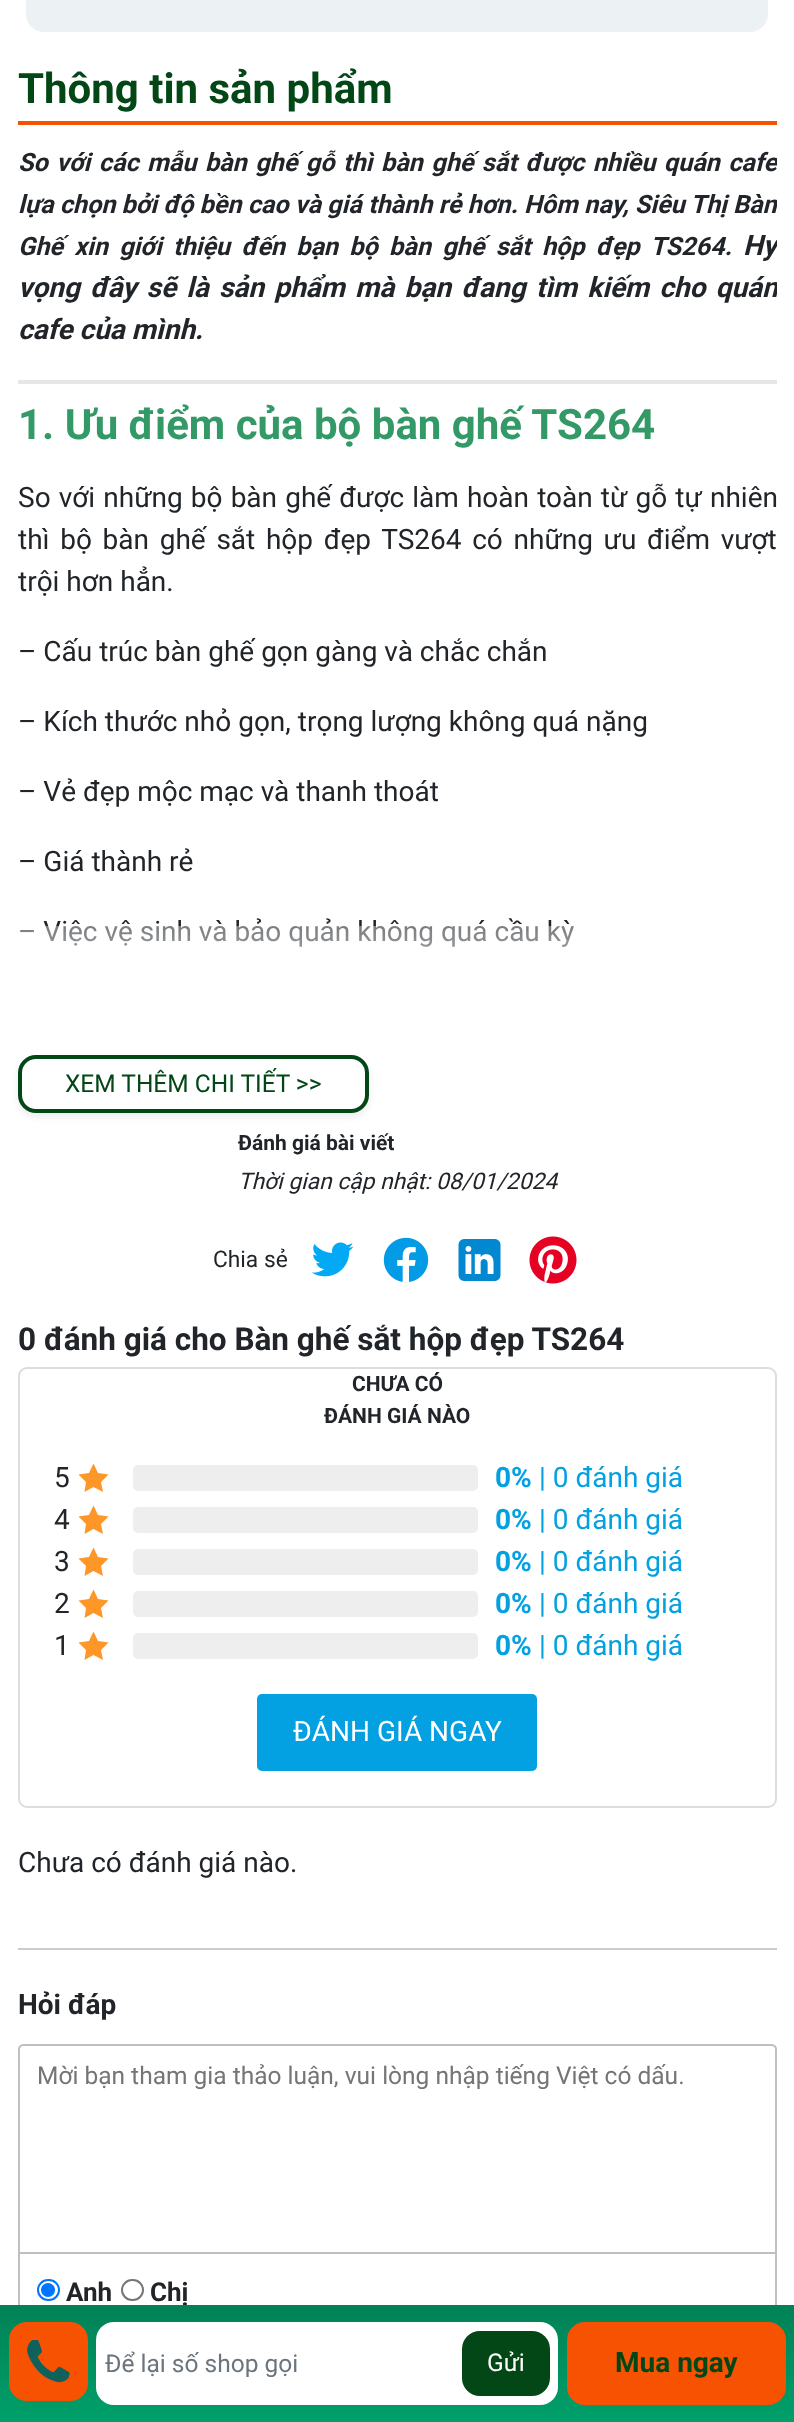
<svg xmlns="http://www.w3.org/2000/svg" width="794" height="2422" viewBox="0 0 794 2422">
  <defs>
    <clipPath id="clip1"><rect x="18" y="142" width="759" height="896"/></clipPath>
    <linearGradient id="g1" gradientUnits="userSpaceOnUse" x1="397" y1="926" x2="397" y2="1038"><stop offset="0" stop-color="#ffffff" stop-opacity="0.4"/><stop offset="1" stop-color="#ffffff"/></linearGradient>
    <clipPath id="clip2"><path d="M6 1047H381V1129H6ZM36 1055H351C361 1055 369 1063 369 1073V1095C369 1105 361 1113 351 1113H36C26 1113 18 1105 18 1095V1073C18 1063 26 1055 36 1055Z" clip-rule="evenodd"/></clipPath>
    <filter id="blur1" x="-50%" y="-200%" width="200%" height="500%"><feGaussianBlur stdDeviation="3.5"/></filter>
    <linearGradient id="g2" gradientUnits="userSpaceOnUse" x1="397" y1="2305" x2="397" y2="2422"><stop offset="0" stop-color="#018156"/><stop offset="1" stop-color="#00a06a"/></linearGradient>
  </defs>
  <rect width="100%" height="100%" fill="#ffffff"/>
  <rect x="26" y="-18" width="742" height="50" rx="18" fill="#ecf1f4"/>
  <rect x="18" y="121" width="759" height="4" fill="#f65202"/>
  <text x="18" y="103" font-family="Roboto" font-size="42" font-weight="bold" fill="#024715">Thông tin sản phẩm</text>
  <g clip-path="url(#clip1)">
    <text x="18" y="171" word-spacing="2.25" font-family="Roboto" font-size="25.2" font-weight="bold" font-style="italic" fill="#212529">So với các mẫu bàn ghế gỗ thì bàn ghế sắt được nhiều quán cafe</text>
    <text x="18" y="213" font-family="Roboto" font-size="25.2" font-weight="bold" font-style="italic" fill="#212529">lựa chọn bởi độ bền cao và giá thành rẻ hơn. Hôm nay, Siêu Thị Bàn</text>
  </g>
  <text x="18" y="255" word-spacing="5.1" font-family="Roboto" font-size="25.2" font-weight="bold" font-style="italic" fill="#212529">Ghế xin giới thiệu đến bạn bộ bàn ghế sắt hộp đẹp TS264.</text>
  <g clip-path="url(#clip1)">
    <text x="743" y="255" font-family="Roboto" font-size="28" font-weight="bold" font-style="italic" fill="#212529">Hy</text>
    <text x="18" y="297" word-spacing="3.25" font-family="Roboto" font-size="28" font-weight="bold" font-style="italic" fill="#212529">vọng đây sẽ là sản phẩm mà bạn đang tìm kiếm cho quán</text>
  </g>
  <text x="18" y="339" font-family="Roboto" font-size="28" font-weight="bold" font-style="italic" fill="#212529">cafe của mình.</text>
  <rect x="18" y="380" width="759" height="4" fill="#e6e6e6"/>
  <text x="18" y="439" font-family="Roboto" font-size="42" font-weight="bold" fill="#339966">1. Ưu điểm của bộ bàn ghế TS264</text>
  <text x="18" y="507" word-spacing="1.2" font-family="Roboto" font-size="28" fill="#212529">So với những bộ bàn ghế được làm hoàn toàn từ gỗ tự nhiên</text>
  <text x="18" y="549" word-spacing="3.75" font-family="Roboto" font-size="28" fill="#212529">thì bộ bàn ghế sắt hộp đẹp TS264 có những ưu điểm vượt</text>
  <text x="18" y="591" font-family="Roboto" font-size="28" fill="#212529">trội hơn hẳn.</text>
  <text x="18" y="661" font-family="Roboto" font-size="28" fill="#212529">– Cấu trúc bàn ghế gọn gàng và chắc chắn</text>
  <text x="18" y="731" font-family="Roboto" font-size="28" fill="#212529">– Kích thước nhỏ gọn, trọng lượng không quá nặng</text>
  <text x="18" y="801" font-family="Roboto" font-size="28" fill="#212529">– Vẻ đẹp mộc mạc và thanh thoát</text>
  <text x="18" y="871" font-family="Roboto" font-size="28" fill="#212529">– Giá thành rẻ</text>
  <text x="18" y="941" font-family="Roboto" font-size="28" fill="#212529">– Việc vệ sinh và bảo quản không quá cầu kỳ</text>
  <rect x="19" y="926" width="555" height="21" fill="url(#g1)"/>
  <g clip-path="url(#clip2)">
    <rect x="18" y="1059" width="351" height="58" rx="18" fill="#000000" fill-opacity="0.07" filter="url(#blur1)"/>
  </g>
  <rect x="20" y="1057" width="347" height="54" rx="16" fill="none" stroke="#024715" stroke-width="4"/>
  <text x="65" y="1092" font-family="Roboto" font-size="24.5" fill="#024715">XEM THÊM CHI TIẾT &gt;&gt;</text>
  <text x="238" y="1150" font-family="Roboto" font-size="21" font-weight="bold" fill="#212529">Đánh giá bài viết</text>
  <text x="238" y="1189" font-family="Roboto" font-size="22.75" font-style="italic" fill="#212529">Thời gian cập nhật: 08/01/2024</text>
  <text x="213" y="1267" font-family="Roboto" font-size="22.75" fill="#212529">Chia sẻ</text>
  <image x="311" y="1242" width="43" height="35" href="img1.png"/>
  <image x="383" y="1237" width="46" height="46" href="img2.png"/>
  <image x="458" y="1239" width="43" height="42" href="img3.png"/>
  <image x="529" y="1236" width="48" height="48" href="img4.png"/>
  <rect x="18" y="1948" width="759" height="2" fill="#cccccc"/>
  <text x="18" y="1350" font-family="Roboto" font-size="31.5" font-weight="bold" fill="#212529">0 đánh giá cho Bàn ghế sắt hộp đẹp TS264</text>
  <rect x="19" y="1368" width="757" height="439" rx="8" fill="none" stroke="#dddddd" stroke-width="2"/>
  <text x="352" y="1391" font-family="Roboto" font-size="21" font-weight="bold" fill="#212529">CHƯA CÓ</text>
  <text x="324" y="1423" font-family="Roboto" font-size="21" font-weight="bold" fill="#212529">ĐÁNH GIÁ NÀO</text>
  <text x="54" y="1487" font-family="Roboto" font-size="28" fill="#212529">5</text>
  <path d="M108.5 1474.5L98 1473L93.5 1463.5L89 1473L78.5 1474.5L86 1482L84.5 1492L93.5 1487L103 1492L101 1482Z" fill="#fe9727"/>
  <rect x="133" y="1465" width="345" height="26" rx="5" fill="#eeeeee"/>
  <text x="495" y="1487" font-family="Roboto" font-size="28" font-weight="bold" fill="#03a0e2">0%</text>
  <text x="539" y="1487" font-family="Roboto" font-size="28" fill="#03a0e2">| 0 đánh giá</text>
  <text x="54" y="1529" font-family="Roboto" font-size="28" fill="#212529">4</text>
  <path d="M108.5 1516.5L98 1515L93.5 1505.5L89 1515L78.5 1516.5L86 1524L84.5 1534L93.5 1529L103 1534L101 1524Z" fill="#fe9727"/>
  <rect x="133" y="1507" width="345" height="26" rx="5" fill="#eeeeee"/>
  <text x="495" y="1529" font-family="Roboto" font-size="28" font-weight="bold" fill="#03a0e2">0%</text>
  <text x="539" y="1529" font-family="Roboto" font-size="28" fill="#03a0e2">| 0 đánh giá</text>
  <text x="54" y="1571" font-family="Roboto" font-size="28" fill="#212529">3</text>
  <path d="M108.5 1558.5L98 1557L93.5 1547.5L89 1557L78.5 1558.5L86 1566L84.5 1576L93.5 1571L103 1576L101 1566Z" fill="#fe9727"/>
  <rect x="133" y="1549" width="345" height="26" rx="5" fill="#eeeeee"/>
  <text x="495" y="1571" font-family="Roboto" font-size="28" font-weight="bold" fill="#03a0e2">0%</text>
  <text x="539" y="1571" font-family="Roboto" font-size="28" fill="#03a0e2">| 0 đánh giá</text>
  <text x="54" y="1613" font-family="Roboto" font-size="28" fill="#212529">2</text>
  <path d="M108.5 1600.5L98 1599L93.5 1589.5L89 1599L78.5 1600.5L86 1608L84.5 1618L93.5 1613L103 1618L101 1608Z" fill="#fe9727"/>
  <rect x="133" y="1591" width="345" height="26" rx="5" fill="#eeeeee"/>
  <text x="495" y="1613" font-family="Roboto" font-size="28" font-weight="bold" fill="#03a0e2">0%</text>
  <text x="539" y="1613" font-family="Roboto" font-size="28" fill="#03a0e2">| 0 đánh giá</text>
  <text x="54" y="1655" font-family="Roboto" font-size="28" fill="#212529">1</text>
  <path d="M108.5 1642.5L98 1641L93.5 1631.5L89 1641L78.5 1642.5L86 1650L84.5 1660L93.5 1655L103 1660L101 1650Z" fill="#fe9727"/>
  <rect x="133" y="1633" width="345" height="26" rx="5" fill="#eeeeee"/>
  <text x="495" y="1655" font-family="Roboto" font-size="28" font-weight="bold" fill="#03a0e2">0%</text>
  <text x="539" y="1655" font-family="Roboto" font-size="28" fill="#03a0e2">| 0 đánh giá</text>
  <rect x="257" y="1694" width="280" height="77" rx="5" fill="#03a0e2"/>
  <text x="293" y="1741" font-family="Roboto" font-size="28" fill="#ffffff">ĐÁNH GIÁ NGAY</text>
  <text x="18" y="1872" font-family="Roboto" font-size="28" fill="#212529">Chưa có đánh giá nào.</text>
  <text x="18" y="2014" font-family="Roboto" font-size="28" font-weight="bold" fill="#212529">Hỏi đáp</text>
  <path d="M23 2045H772C774 2045 776 2047 776 2049V2253H19V2049C19 2047 21 2045 23 2045Z" fill="none" stroke="#c1bfbf" stroke-width="2"/>
  <text x="37" y="2084" font-family="Roboto" font-size="24.5" fill="#757575">Mời bạn tham gia thảo luận, vui lòng nhập tiếng Việt có dấu.</text>
  <rect x="775" y="2254" width="2" height="51" fill="#c1bfbf"/>
  <rect x="18" y="2254" width="2" height="51" fill="#c1bfbf"/>
  <rect x="38" y="2280" width="21" height="20" rx="10" fill="none" stroke="#0075ff" stroke-width="2"/>
  <circle cx="48" cy="2290" r="7" fill="#0075ff"/>
  <text x="66" y="2301" font-family="Roboto" font-size="26" font-weight="bold" fill="#212529">Anh</text>
  <rect x="122" y="2280" width="21" height="20" rx="10" fill="none" stroke="#767676" stroke-width="2"/>
  <text x="150" y="2301" font-family="Roboto" font-size="26" font-weight="bold" fill="#212529">Chị</text>
  <rect x="0" y="2305" width="794" height="117" fill="url(#g2)"/>
  <rect x="9" y="2322" width="79" height="79" rx="18" fill="#f65202"/>
  <image x="27" y="2340" width="43" height="43" href="img5.png"/>
  <rect x="96" y="2322" width="462" height="83" rx="18" fill="#ffffff"/>
  <text x="105" y="2372" font-family="Roboto" font-size="24.5" fill="#6c757d">Để lại số shop gọi</text>
  <rect x="462" y="2331" width="88" height="65" rx="18" fill="#024715"/>
  <text x="487" y="2371" font-family="Roboto" font-size="24.5" fill="#ffffff">Gửi</text>
  <rect x="569" y="2324" width="215" height="79" rx="16" fill="#f65202" stroke="#f65202" stroke-width="4"/>
  <text x="615" y="2372" font-family="Roboto" font-size="28" font-weight="bold" fill="#024715">Mua ngay</text>
</svg>
